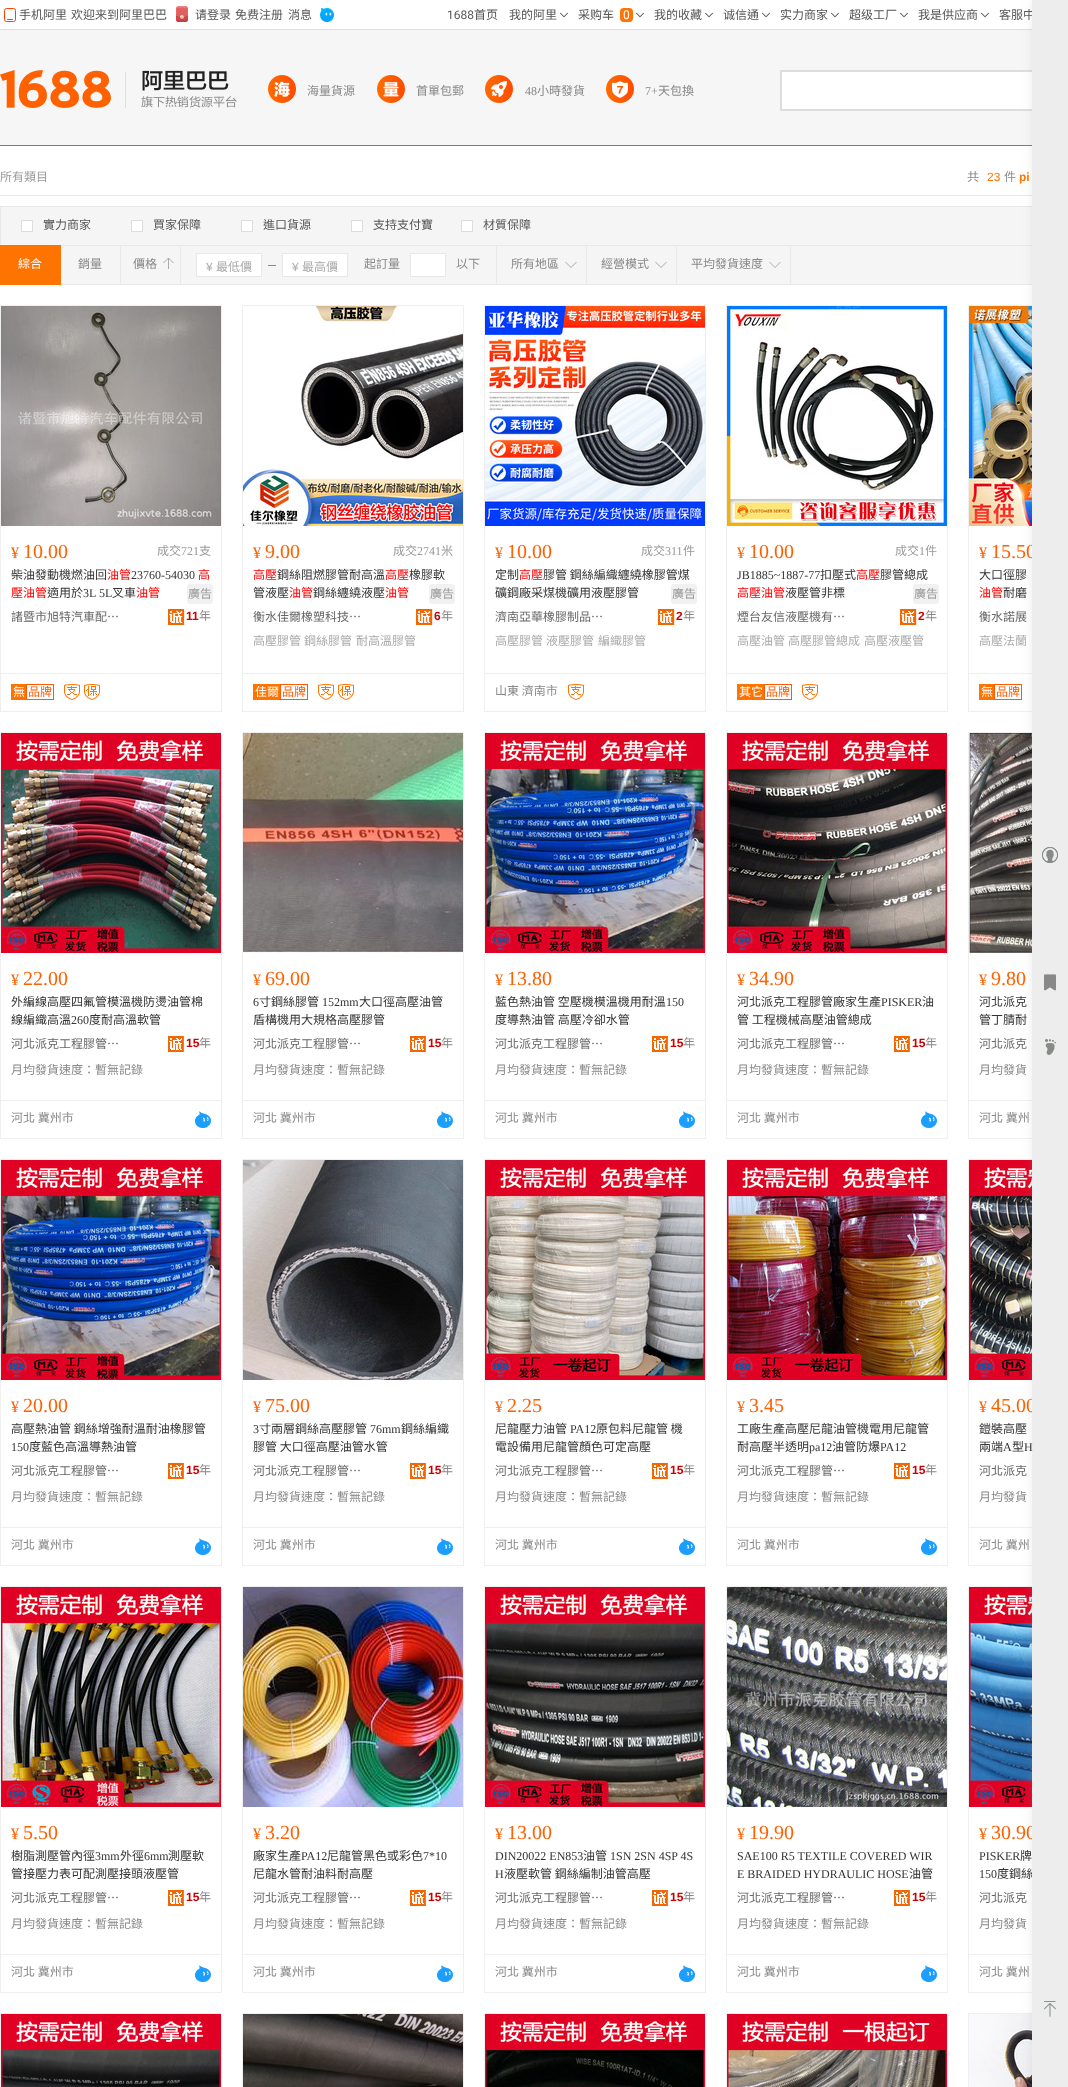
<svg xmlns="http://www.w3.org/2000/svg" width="1068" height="2087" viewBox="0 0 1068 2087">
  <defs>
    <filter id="blur1" x="-50%" y="-200%" width="200%" height="500%"><feGaussianBlur stdDeviation="5"/></filter>
    <clipPath id="clip1"><rect x="565" y="262" width="12" height="6"/></clipPath>
    <clipPath id="clip2"><rect x="655" y="262" width="12" height="6"/></clipPath>
    <clipPath id="clip3"><rect x="769" y="262" width="12" height="6"/></clipPath>
  </defs>
  <rect width="100%" height="100%" fill="#ffffff"/>
  <rect x="0" y="29" width="1032" height="1" fill="#dddddd"/>
  <rect x="4.5" y="8.5" width="11" height="13" rx="2" fill="none" stroke="#ff4000"/>
  <text x="19" y="19" font-family="Noto Sans CJK TC" font-size="12" fill="#555555">手机阿里</text>
  <path d="M7.5 19.5H12.5" fill="none" stroke="#ff4000" stroke-linecap="round" stroke-linejoin="round"/>
  <text x="71" y="19" font-family="Noto Sans CJK TC" font-size="12" fill="#555555">欢迎来到阿里巴巴</text>
  <image x="176" y="6" width="12" height="16" href="img1.png"/>
  <text x="195" y="19" font-family="Noto Sans CJK TC" font-size="12" fill="#555555">请登录</text>
  <text x="235" y="19" font-family="Noto Sans CJK TC" font-size="12" fill="#555555">免费注册</text>
  <text x="288" y="19" font-family="Noto Sans CJK TC" font-size="12" fill="#555555">消息</text>
  <image x="320" y="8" width="14" height="14" href="img2.png"/>
  <text x="447" y="19" font-family="Roboto" font-size="12" fill="#555555">1688</text>
  <text x="474" y="19" font-family="Noto Sans CJK TC" font-size="12" fill="#555555">首页</text>
  <text x="509" y="19" font-family="Noto Sans CJK TC" font-size="12" fill="#555555">我的阿里</text>
  <image x="560" y="12" width="8" height="6" href="img3.png"/>
  <text x="578" y="19" font-family="Noto Sans CJK TC" font-size="12" fill="#555555">采购车</text>
  <rect x="620" y="8" width="13" height="14" rx="4" fill="#ff7300"/>
  <text x="623" y="19" font-family="Roboto" font-size="12" fill="#ffffff">0</text>
  <image x="636" y="12" width="8" height="6" href="img3.png"/>
  <text x="654" y="19" font-family="Noto Sans CJK TC" font-size="12" fill="#555555">我的收藏</text>
  <image x="705" y="12" width="8" height="6" href="img3.png"/>
  <text x="723" y="19" font-family="Noto Sans CJK TC" font-size="12" fill="#555555">诚信通</text>
  <image x="762" y="12" width="8" height="6" href="img3.png"/>
  <text x="780" y="19" font-family="Noto Sans CJK TC" font-size="12" fill="#555555">实力商家</text>
  <image x="831" y="12" width="8" height="6" href="img3.png"/>
  <text x="849" y="19" font-family="Noto Sans CJK TC" font-size="12" fill="#555555">超级工厂</text>
  <image x="900" y="12" width="8" height="6" href="img3.png"/>
  <text x="918" y="19" font-family="Noto Sans CJK TC" font-size="12" fill="#555555">我是供应商</text>
  <image x="981" y="12" width="8" height="6" href="img3.png"/>
  <text x="999" y="19" font-family="Noto Sans CJK TC" font-size="12" fill="#555555">客服中</text>
  <rect x="0" y="30" width="1032" height="115" fill="#f6f6f6"/>
  <rect x="0" y="145" width="1032" height="1" fill="#ff4f00"/>
  <rect x="782" y="72" width="250" height="37" fill="#ffffff"/>
  <rect x="781" y="71" width="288" height="39" fill="none" stroke="#dddddd" stroke-width="2"/>
  <rect x="0" y="195" width="1032" height="1" fill="#e8e8e8"/>
  <rect x="1" y="207" width="1031" height="38" fill="#f5f5f5"/>
  <rect x="0" y="206" width="1032" height="1" fill="#e8e8e8"/>
  <rect x="181" y="246" width="851" height="38" fill="#f5f5f5"/>
  <rect x="181" y="245" width="851" height="1" fill="#e8e8e8"/>
  <rect x="181" y="284" width="851" height="1" fill="#e8e8e8"/>
  <rect x="968.5" y="305.5" width="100" height="406" fill="none" stroke="#efefef"/>
  <image x="969" y="306" width="63" height="220" href="img22.png"/>
  <rect x="969" y="673" width="63" height="1" fill="#efefef"/>
  <rect x="994.5" y="684.5" width="27" height="15" fill="none" stroke="#ff5a00"/>
  <rect x="968.5" y="732.5" width="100" height="406" fill="none" stroke="#efefef"/>
  <image x="969" y="733" width="63" height="220" href="img29.png"/>
  <rect x="969" y="1100" width="63" height="1" fill="#efefef"/>
  <rect x="968.5" y="1159.5" width="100" height="406" fill="none" stroke="#efefef"/>
  <image x="969" y="1160" width="63" height="220" href="img33.png"/>
  <rect x="969" y="1527" width="63" height="1" fill="#efefef"/>
  <rect x="968.5" y="1586.5" width="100" height="406" fill="none" stroke="#efefef"/>
  <image x="969" y="1587" width="63" height="220" href="img38.png"/>
  <rect x="969" y="1954" width="63" height="1" fill="#efefef"/>
  <rect x="968.5" y="2013.5" width="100" height="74" fill="none" stroke="#efefef"/>
  <image x="969" y="2014" width="63" height="73" href="img43.png"/>
  <rect x="1032" y="0" width="36" height="2087" fill="#999999" fill-opacity="0.2" filter="url(#blur1)"/>
  <text x="991" y="558" font-family="Liberation Serif" font-size="20" fill="#ff6000">15.50</text>
  <text x="991" y="1412" font-family="Liberation Serif" font-size="20" fill="#ff6000">45.00</text>
  <text x="991" y="1839" font-family="Liberation Serif" font-size="20" fill="#ff6000">30.90</text>
  <text x="997" y="1878" font-family="Noto Sans CJK TC" font-size="12" fill="#333333">度鋼絲</text>
  <rect x="1032" y="0" width="36" height="2087" fill="#ededed"/>
  <image x="1042" y="847" width="16" height="16" href="img4.png"/>
  <image x="1044" y="974" width="12" height="17" href="img5.png"/>
  <image x="1045" y="1039" width="11" height="16" href="img6.png"/>
  <image x="1044" y="2001" width="12" height="16" href="img7.png"/>
  <image x="0" y="70" width="111" height="38" href="img8.png"/>
  <rect x="125" y="72" width="1" height="36" fill="#dfdfdf"/>
  <image x="141" y="70" width="96" height="38" href="img9.png"/>
  <image x="268" y="75" width="28" height="28" href="img10.png"/>
  <text x="307" y="95" font-family="Noto Sans CJK TC" font-size="12" fill="#888888">海量貨源</text>
  <image x="377" y="75" width="28" height="28" href="img11.png"/>
  <text x="416" y="95" font-family="Noto Sans CJK TC" font-size="12" fill="#888888">首單包郵</text>
  <image x="485" y="75" width="28" height="28" href="img12.png"/>
  <text x="525" y="95" font-family="Liberation Serif" font-size="12" fill="#888888">48</text>
  <text x="537" y="95" font-family="Noto Sans CJK TC" font-size="12" fill="#888888">小時發貨</text>
  <image x="606" y="75" width="28" height="28" href="img13.png"/>
  <text x="645" y="95" font-family="Liberation Serif" font-size="12" fill="#888888">7+</text>
  <text x="658" y="95" font-family="Noto Sans CJK TC" font-size="12" fill="#888888">天包換</text>
  <text x="0" y="181" font-family="Noto Sans CJK TC" font-size="12" fill="#999999">所有類目</text>
  <text x="967" y="181" font-family="Noto Sans CJK TC" font-size="12" fill="#888888">共</text>
  <text x="987" y="181" font-family="Liberation Sans" font-size="12" fill="#ff7300">23</text>
  <text x="1004" y="181" font-family="Noto Sans CJK TC" font-size="12" fill="#888888">件</text>
  <text x="1019" y="181" font-family="Liberation Sans" font-size="12" font-weight="bold" fill="#ff7300">pi</text>
  <rect x="0" y="206" width="1" height="39" fill="#e8e8e8"/>
  <rect x="21.5" y="220.5" width="11" height="11" fill="#ffffff" stroke="#dddddd"/>
  <text x="43" y="229" font-family="Noto Sans CJK TC" font-size="12" fill="#555555">實力商家</text>
  <rect x="131.5" y="220.5" width="11" height="11" fill="#ffffff" stroke="#dddddd"/>
  <text x="153" y="229" font-family="Noto Sans CJK TC" font-size="12" fill="#555555">買家保障</text>
  <rect x="241.5" y="220.5" width="11" height="11" fill="#ffffff" stroke="#dddddd"/>
  <text x="263" y="229" font-family="Noto Sans CJK TC" font-size="12" fill="#555555">進口貨源</text>
  <rect x="351.5" y="220.5" width="11" height="11" fill="#ffffff" stroke="#dddddd"/>
  <text x="373" y="229" font-family="Noto Sans CJK TC" font-size="12" fill="#555555">支持支付寶</text>
  <rect x="461.5" y="220.5" width="11" height="11" fill="#ffffff" stroke="#dddddd"/>
  <text x="483" y="229" font-family="Noto Sans CJK TC" font-size="12" fill="#555555">材質保障</text>
  <rect x="60.5" y="245.5" width="60" height="39" fill="#f5f5f5" stroke="#e8e8e8"/>
  <rect x="0" y="245" width="61" height="40" fill="#ff7300"/>
  <text x="18" y="268" font-family="Noto Sans CJK TC" font-size="12" fill="#ffffff">綜合</text>
  <text x="78" y="268" font-family="Noto Sans CJK TC" font-size="12" fill="#888888">銷量</text>
  <rect x="120.5" y="245.5" width="60" height="39" fill="#f5f5f5" stroke="#e8e8e8"/>
  <text x="133" y="268" font-family="Noto Sans CJK TC" font-size="12" fill="#888888">價格</text>
  <path d="M174 263H163L168 258H169Z" fill="#aaaaaa"/>
  <path d="M174 264H163L168 259H169Z" fill="#f5f5f5"/>
  <rect x="168" y="258" width="1" height="11" fill="#aaaaaa"/>
  <rect x="196.5" y="253.5" width="65" height="23" fill="#ffffff" stroke="#e8e8e8"/>
  <text x="206" y="271" font-family="Liberation Sans" font-size="12" fill="#aaaaaa">¥</text>
  <text x="216" y="271" font-family="Noto Sans CJK TC" font-size="12" fill="#aaaaaa">最低價</text>
  <rect x="268" y="265" width="8" height="1" fill="#888888"/>
  <rect x="282.5" y="253.5" width="65" height="23" fill="#ffffff" stroke="#e8e8e8"/>
  <text x="292" y="271" font-family="Liberation Sans" font-size="12" fill="#aaaaaa">¥</text>
  <text x="302" y="271" font-family="Noto Sans CJK TC" font-size="12" fill="#aaaaaa">最高價</text>
  <text x="364" y="268" font-family="Noto Sans CJK TC" font-size="12" fill="#888888">起訂量</text>
  <rect x="410.5" y="253.5" width="35" height="23" fill="#ffffff" stroke="#e8e8e8"/>
  <text x="456" y="268" font-family="Noto Sans CJK TC" font-size="12" fill="#888888">以下</text>
  <rect x="496.5" y="245.5" width="90" height="39" fill="none" stroke="#e8e8e8"/>
  <text x="511" y="268" font-family="Noto Sans CJK TC" font-size="12" fill="#888888">所有地區</text>
  <path d="M565 262H577L571 268Z" fill="#aaaaaa"/>
  <g clip-path="url(#clip1)">
    <path d="M565 261H577L571 267Z" fill="#f5f5f5"/>
  </g>
  <rect x="586.5" y="245.5" width="90" height="39" fill="none" stroke="#e8e8e8"/>
  <text x="601" y="268" font-family="Noto Sans CJK TC" font-size="12" fill="#888888">經營模式</text>
  <path d="M655 262H667L661 268Z" fill="#aaaaaa"/>
  <g clip-path="url(#clip2)">
    <path d="M655 261H667L661 267Z" fill="#f5f5f5"/>
  </g>
  <rect x="676.5" y="245.5" width="114" height="39" fill="none" stroke="#e8e8e8"/>
  <text x="691" y="268" font-family="Noto Sans CJK TC" font-size="12" fill="#888888">平均發貨速度</text>
  <path d="M769 262H781L775 268Z" fill="#aaaaaa"/>
  <g clip-path="url(#clip3)">
    <path d="M769 261H781L775 267Z" fill="#f5f5f5"/>
  </g>
  <rect x="0.5" y="305.5" width="221" height="406" fill="none" stroke="#efefef"/>
  <image x="1" y="306" width="220" height="220" href="img14.png"/>
  <text x="11" y="558" font-family="Liberation Serif" font-size="16" fill="#ff6000">¥</text>
  <text x="23" y="558" font-family="Liberation Serif" font-size="20" fill="#ff6000">10.00</text>
  <text x="157" y="555" font-family="Noto Sans CJK TC" font-size="12" fill="#999999">成交</text>
  <text x="181" y="555" font-family="Liberation Serif" font-size="12" fill="#999999">721</text>
  <text x="199" y="555" font-family="Noto Sans CJK TC" font-size="12" fill="#999999">支</text>
  <text x="11" y="579" font-family="Noto Sans CJK TC" font-size="12" fill="#333333">柴油發動機燃油回</text>
  <text x="107" y="579" font-family="Noto Sans CJK TC" font-size="12" fill="#ff0000">油管</text>
  <text x="131" y="579" font-family="Liberation Serif" font-size="12" fill="#333333">23760-54030</text>
  <text x="198" y="579" font-family="Noto Sans CJK TC" font-size="12" fill="#ff0000">高</text>
  <text x="11" y="597" font-family="Noto Sans CJK TC" font-size="12" fill="#ff0000">壓油管</text>
  <text x="47" y="597" font-family="Noto Sans CJK TC" font-size="12" fill="#333333">適用於</text>
  <text x="83" y="597" font-family="Liberation Serif" font-size="12" fill="#333333">3L 5L</text>
  <text x="112" y="597" font-family="Noto Sans CJK TC" font-size="12" fill="#333333">叉車</text>
  <text x="136" y="597" font-family="Noto Sans CJK TC" font-size="12" fill="#ff0000">油管</text>
  <rect x="187" y="584" width="26" height="20" rx="3" fill="#f1f1f1"/>
  <text x="188" y="598" font-family="Noto Sans CJK TC" font-size="12" fill="#999999">廣告</text>
  <text x="11" y="621" font-family="Noto Sans CJK TC" font-size="12" fill="#666666">諸暨市旭特汽車配…</text>
  <image x="168" y="609" width="17" height="16" href="img15.png"/>
  <text x="186" y="620" font-family="Liberation Sans" font-size="12" font-weight="bold" fill="#cc0000">11</text>
  <text x="199" y="620" font-family="Noto Sans CJK TC" font-size="12" fill="#888888">年</text>
  <rect x="1" y="673" width="220" height="1" fill="#efefef"/>
  <rect x="11" y="684" width="15" height="16" fill="#ff7300"/>
  <text x="13" y="696" font-family="Noto Sans CJK TC" font-size="12" fill="#ffffff">無</text>
  <rect x="26.5" y="684.5" width="27" height="15" fill="none" stroke="#ff5a00"/>
  <text x="28" y="696" font-family="Noto Sans CJK TC" font-size="12" fill="#ff5a00">品牌</text>
  <image x="64" y="684" width="16" height="16" href="img16.png"/>
  <image x="84" y="684" width="16" height="16" href="img17.png"/>
  <rect x="242.5" y="305.5" width="221" height="406" fill="none" stroke="#efefef"/>
  <image x="243" y="306" width="220" height="220" href="img18.png"/>
  <text x="253" y="558" font-family="Liberation Serif" font-size="16" fill="#ff6000">¥</text>
  <text x="265" y="558" font-family="Liberation Serif" font-size="20" fill="#ff6000">9.00</text>
  <text x="393" y="555" font-family="Noto Sans CJK TC" font-size="12" fill="#999999">成交</text>
  <text x="417" y="555" font-family="Liberation Serif" font-size="12" fill="#999999">2741</text>
  <text x="441" y="555" font-family="Noto Sans CJK TC" font-size="12" fill="#999999">米</text>
  <text x="253" y="579" font-family="Noto Sans CJK TC" font-size="12" fill="#ff0000">高壓</text>
  <text x="277" y="579" font-family="Noto Sans CJK TC" font-size="12" fill="#333333">鋼絲阻燃膠管耐高溫</text>
  <text x="385" y="579" font-family="Noto Sans CJK TC" font-size="12" fill="#ff0000">高壓</text>
  <text x="409" y="579" font-family="Noto Sans CJK TC" font-size="12" fill="#333333">橡膠軟</text>
  <text x="253" y="597" font-family="Noto Sans CJK TC" font-size="12" fill="#333333">管液壓</text>
  <text x="289" y="597" font-family="Noto Sans CJK TC" font-size="12" fill="#ff0000">油管</text>
  <text x="313" y="597" font-family="Noto Sans CJK TC" font-size="12" fill="#333333">鋼絲纏繞液壓</text>
  <text x="385" y="597" font-family="Noto Sans CJK TC" font-size="12" fill="#ff0000">油管</text>
  <rect x="429" y="584" width="26" height="20" rx="3" fill="#f1f1f1"/>
  <text x="430" y="598" font-family="Noto Sans CJK TC" font-size="12" fill="#999999">廣告</text>
  <text x="253" y="621" font-family="Noto Sans CJK TC" font-size="12" fill="#666666">衡水佳爾橡塑科技…</text>
  <image x="416" y="609" width="17" height="16" href="img19.png"/>
  <text x="434" y="620" font-family="Liberation Sans" font-size="12" font-weight="bold" fill="#cc0000">6</text>
  <text x="441" y="620" font-family="Noto Sans CJK TC" font-size="12" fill="#888888">年</text>
  <text x="253" y="645" font-family="Noto Sans CJK TC" font-size="12" fill="#aaaaaa">高壓膠管</text>
  <text x="304" y="645" font-family="Noto Sans CJK TC" font-size="12" fill="#aaaaaa">鋼絲膠管</text>
  <text x="356" y="645" font-family="Noto Sans CJK TC" font-size="12" fill="#aaaaaa">耐高溫膠管</text>
  <rect x="243" y="673" width="220" height="1" fill="#efefef"/>
  <rect x="253" y="684" width="27" height="16" fill="#ff7300"/>
  <text x="255" y="696" font-family="Noto Sans CJK TC" font-size="12" fill="#ffffff">佳爾</text>
  <rect x="280.5" y="684.5" width="27" height="15" fill="none" stroke="#ff5a00"/>
  <text x="282" y="696" font-family="Noto Sans CJK TC" font-size="12" fill="#ff5a00">品牌</text>
  <image x="318" y="684" width="16" height="16" href="img16.png"/>
  <image x="338" y="684" width="16" height="16" href="img17.png"/>
  <rect x="484.5" y="305.5" width="221" height="406" fill="none" stroke="#efefef"/>
  <image x="485" y="306" width="220" height="220" href="img20.png"/>
  <text x="495" y="558" font-family="Liberation Serif" font-size="16" fill="#ff6000">¥</text>
  <text x="507" y="558" font-family="Liberation Serif" font-size="20" fill="#ff6000">10.00</text>
  <text x="641" y="555" font-family="Noto Sans CJK TC" font-size="12" fill="#999999">成交</text>
  <text x="665" y="555" font-family="Liberation Serif" font-size="12" fill="#999999">311</text>
  <text x="683" y="555" font-family="Noto Sans CJK TC" font-size="12" fill="#999999">件</text>
  <text x="495" y="579" font-family="Noto Sans CJK TC" font-size="12" fill="#333333">定制</text>
  <text x="519" y="579" font-family="Noto Sans CJK TC" font-size="12" fill="#ff0000">高壓</text>
  <text x="543" y="579" font-family="Noto Sans CJK TC" font-size="12" fill="#333333">膠管 鋼絲編織纏繞橡膠管煤</text>
  <text x="495" y="597" font-family="Noto Sans CJK TC" font-size="12" fill="#333333">礦鋼廠采煤機礦用液壓膠管</text>
  <rect x="671" y="584" width="26" height="20" rx="3" fill="#f1f1f1"/>
  <text x="672" y="598" font-family="Noto Sans CJK TC" font-size="12" fill="#999999">廣告</text>
  <text x="495" y="621" font-family="Noto Sans CJK TC" font-size="12" fill="#666666">濟南亞華橡膠制品…</text>
  <image x="658" y="609" width="17" height="16" href="img19.png"/>
  <text x="676" y="620" font-family="Liberation Sans" font-size="12" font-weight="bold" fill="#cc0000">2</text>
  <text x="683" y="620" font-family="Noto Sans CJK TC" font-size="12" fill="#888888">年</text>
  <text x="495" y="645" font-family="Noto Sans CJK TC" font-size="12" fill="#aaaaaa">高壓膠管</text>
  <text x="546" y="645" font-family="Noto Sans CJK TC" font-size="12" fill="#aaaaaa">液壓膠管</text>
  <text x="598" y="645" font-family="Noto Sans CJK TC" font-size="12" fill="#aaaaaa">編織膠管</text>
  <rect x="485" y="673" width="220" height="1" fill="#efefef"/>
  <text x="495" y="695" font-family="Noto Sans CJK TC" font-size="12" fill="#888888">山東 濟南市</text>
  <image x="568" y="684" width="16" height="16" href="img16.png"/>
  <rect x="726.5" y="305.5" width="221" height="406" fill="none" stroke="#efefef"/>
  <image x="727" y="306" width="220" height="220" href="img21.png"/>
  <text x="737" y="558" font-family="Liberation Serif" font-size="16" fill="#ff6000">¥</text>
  <text x="749" y="558" font-family="Liberation Serif" font-size="20" fill="#ff6000">10.00</text>
  <text x="895" y="555" font-family="Noto Sans CJK TC" font-size="12" fill="#999999">成交</text>
  <text x="919" y="555" font-family="Liberation Serif" font-size="12" fill="#999999">1</text>
  <text x="925" y="555" font-family="Noto Sans CJK TC" font-size="12" fill="#999999">件</text>
  <text x="737" y="579" font-family="Liberation Serif" font-size="12" fill="#333333">JB1885~1887-77</text>
  <text x="820" y="579" font-family="Noto Sans CJK TC" font-size="12" fill="#333333">扣壓式</text>
  <text x="856" y="579" font-family="Noto Sans CJK TC" font-size="12" fill="#ff0000">高壓</text>
  <text x="880" y="579" font-family="Noto Sans CJK TC" font-size="12" fill="#333333">膠管總成</text>
  <text x="737" y="597" font-family="Noto Sans CJK TC" font-size="12" fill="#ff0000">高壓油管</text>
  <text x="785" y="597" font-family="Noto Sans CJK TC" font-size="12" fill="#333333">液壓管非標</text>
  <rect x="913" y="584" width="26" height="20" rx="3" fill="#f1f1f1"/>
  <text x="914" y="598" font-family="Noto Sans CJK TC" font-size="12" fill="#999999">廣告</text>
  <text x="737" y="621" font-family="Noto Sans CJK TC" font-size="12" fill="#666666">煙台友信液壓機有…</text>
  <image x="900" y="609" width="17" height="16" href="img19.png"/>
  <text x="918" y="620" font-family="Liberation Sans" font-size="12" font-weight="bold" fill="#cc0000">2</text>
  <text x="925" y="620" font-family="Noto Sans CJK TC" font-size="12" fill="#888888">年</text>
  <text x="737" y="645" font-family="Noto Sans CJK TC" font-size="12" fill="#aaaaaa">高壓油管</text>
  <text x="788" y="645" font-family="Noto Sans CJK TC" font-size="12" fill="#aaaaaa">高壓膠管總成</text>
  <text x="864" y="645" font-family="Noto Sans CJK TC" font-size="12" fill="#aaaaaa">高壓液壓管</text>
  <rect x="727" y="673" width="220" height="1" fill="#efefef"/>
  <rect x="737" y="684" width="27" height="16" fill="#ff7300"/>
  <text x="739" y="696" font-family="Noto Sans CJK TC" font-size="12" fill="#ffffff">其它</text>
  <rect x="764.5" y="684.5" width="27" height="15" fill="none" stroke="#ff5a00"/>
  <text x="766" y="696" font-family="Noto Sans CJK TC" font-size="12" fill="#ff5a00">品牌</text>
  <image x="802" y="684" width="16" height="16" href="img16.png"/>
  <text x="979" y="558" font-family="Liberation Serif" font-size="16" fill="#ff6000">¥</text>
  <text x="979" y="579" font-family="Noto Sans CJK TC" font-size="12" fill="#333333">大口徑膠</text>
  <text x="979" y="597" font-family="Noto Sans CJK TC" font-size="12" fill="#ff0000">油管</text>
  <text x="1003" y="597" font-family="Noto Sans CJK TC" font-size="12" fill="#333333">耐磨</text>
  <text x="979" y="621" font-family="Noto Sans CJK TC" font-size="12" fill="#666666">衡水諾展</text>
  <text x="979" y="645" font-family="Noto Sans CJK TC" font-size="12" fill="#aaaaaa">高壓法蘭</text>
  <rect x="979" y="684" width="15" height="16" fill="#ff7300"/>
  <text x="981" y="696" font-family="Noto Sans CJK TC" font-size="12" fill="#ffffff">無</text>
  <text x="996" y="696" font-family="Noto Sans CJK TC" font-size="12" fill="#ff5a00">品牌</text>
  <rect x="0.5" y="732.5" width="221" height="406" fill="none" stroke="#efefef"/>
  <image x="1" y="733" width="220" height="220" href="img23.png"/>
  <text x="11" y="985" font-family="Liberation Serif" font-size="16" fill="#ff6000">¥</text>
  <text x="23" y="985" font-family="Liberation Serif" font-size="20" fill="#ff6000">22.00</text>
  <text x="11" y="1006" font-family="Noto Sans CJK TC" font-size="12" fill="#333333">外編線高壓四氟管模溫機防燙油管棉</text>
  <text x="11" y="1024" font-family="Noto Sans CJK TC" font-size="12" fill="#333333">線編織高溫</text>
  <text x="71" y="1024" font-family="Liberation Serif" font-size="12" fill="#333333">260</text>
  <text x="89" y="1024" font-family="Noto Sans CJK TC" font-size="12" fill="#333333">度耐高溫軟管</text>
  <text x="11" y="1048" font-family="Noto Sans CJK TC" font-size="12" fill="#666666">河北派克工程膠管…</text>
  <image x="168" y="1036" width="16" height="16" href="img24.png"/>
  <text x="186" y="1047" font-family="Liberation Sans" font-size="12" font-weight="bold" fill="#cc0000">15</text>
  <text x="199" y="1047" font-family="Noto Sans CJK TC" font-size="12" fill="#888888">年</text>
  <text x="11" y="1074" font-family="Noto Sans CJK TC" font-size="12" fill="#888888">月均發貨速度：暫無記錄</text>
  <rect x="1" y="1100" width="220" height="1" fill="#efefef"/>
  <text x="11" y="1122" font-family="Noto Sans CJK TC" font-size="12" fill="#888888">河北 冀州市</text>
  <image x="195" y="1111" width="16" height="17" href="img25.png"/>
  <rect x="242.5" y="732.5" width="221" height="406" fill="none" stroke="#efefef"/>
  <image x="243" y="733" width="220" height="220" href="img26.png"/>
  <text x="253" y="985" font-family="Liberation Serif" font-size="16" fill="#ff6000">¥</text>
  <text x="265" y="985" font-family="Liberation Serif" font-size="20" fill="#ff6000">69.00</text>
  <text x="253" y="1006" font-family="Liberation Serif" font-size="12" fill="#333333">6</text>
  <text x="259" y="1006" font-family="Noto Sans CJK TC" font-size="12" fill="#333333">寸鋼絲膠管</text>
  <text x="322" y="1006" font-family="Liberation Serif" font-size="12" fill="#333333">152mm</text>
  <text x="359" y="1006" font-family="Noto Sans CJK TC" font-size="12" fill="#333333">大口徑高壓油管</text>
  <text x="253" y="1024" font-family="Noto Sans CJK TC" font-size="12" fill="#333333">盾構機用大規格高壓膠管</text>
  <text x="253" y="1048" font-family="Noto Sans CJK TC" font-size="12" fill="#666666">河北派克工程膠管…</text>
  <image x="410" y="1036" width="16" height="16" href="img24.png"/>
  <text x="428" y="1047" font-family="Liberation Sans" font-size="12" font-weight="bold" fill="#cc0000">15</text>
  <text x="441" y="1047" font-family="Noto Sans CJK TC" font-size="12" fill="#888888">年</text>
  <text x="253" y="1074" font-family="Noto Sans CJK TC" font-size="12" fill="#888888">月均發貨速度：暫無記錄</text>
  <rect x="243" y="1100" width="220" height="1" fill="#efefef"/>
  <text x="253" y="1122" font-family="Noto Sans CJK TC" font-size="12" fill="#888888">河北 冀州市</text>
  <image x="437" y="1111" width="16" height="17" href="img25.png"/>
  <rect x="484.5" y="732.5" width="221" height="406" fill="none" stroke="#efefef"/>
  <image x="485" y="733" width="220" height="220" href="img27.png"/>
  <text x="495" y="985" font-family="Liberation Serif" font-size="16" fill="#ff6000">¥</text>
  <text x="507" y="985" font-family="Liberation Serif" font-size="20" fill="#ff6000">13.80</text>
  <text x="495" y="1006" font-family="Noto Sans CJK TC" font-size="12" fill="#333333">藍色熱油管 空壓機模溫機用耐溫</text>
  <text x="666" y="1006" font-family="Liberation Serif" font-size="12" fill="#333333">150</text>
  <text x="495" y="1024" font-family="Noto Sans CJK TC" font-size="12" fill="#333333">度導熱油管 高壓冷卻水管</text>
  <text x="495" y="1048" font-family="Noto Sans CJK TC" font-size="12" fill="#666666">河北派克工程膠管…</text>
  <image x="652" y="1036" width="16" height="16" href="img24.png"/>
  <text x="670" y="1047" font-family="Liberation Sans" font-size="12" font-weight="bold" fill="#cc0000">15</text>
  <text x="683" y="1047" font-family="Noto Sans CJK TC" font-size="12" fill="#888888">年</text>
  <text x="495" y="1074" font-family="Noto Sans CJK TC" font-size="12" fill="#888888">月均發貨速度：暫無記錄</text>
  <rect x="485" y="1100" width="220" height="1" fill="#efefef"/>
  <text x="495" y="1122" font-family="Noto Sans CJK TC" font-size="12" fill="#888888">河北 冀州市</text>
  <image x="679" y="1111" width="16" height="17" href="img25.png"/>
  <rect x="726.5" y="732.5" width="221" height="406" fill="none" stroke="#efefef"/>
  <image x="727" y="733" width="220" height="220" href="img28.png"/>
  <text x="737" y="985" font-family="Liberation Serif" font-size="16" fill="#ff6000">¥</text>
  <text x="749" y="985" font-family="Liberation Serif" font-size="20" fill="#ff6000">34.90</text>
  <text x="737" y="1006" font-family="Noto Sans CJK TC" font-size="12" fill="#333333">河北派克工程膠管廠家生產</text>
  <text x="881" y="1006" font-family="Liberation Serif" font-size="12" fill="#333333">PISKER</text>
  <text x="922" y="1006" font-family="Noto Sans CJK TC" font-size="12" fill="#333333">油</text>
  <text x="737" y="1024" font-family="Noto Sans CJK TC" font-size="12" fill="#333333">管 工程機械高壓油管總成</text>
  <text x="737" y="1048" font-family="Noto Sans CJK TC" font-size="12" fill="#666666">河北派克工程膠管…</text>
  <image x="894" y="1036" width="16" height="16" href="img24.png"/>
  <text x="912" y="1047" font-family="Liberation Sans" font-size="12" font-weight="bold" fill="#cc0000">15</text>
  <text x="925" y="1047" font-family="Noto Sans CJK TC" font-size="12" fill="#888888">年</text>
  <text x="737" y="1074" font-family="Noto Sans CJK TC" font-size="12" fill="#888888">月均發貨速度：暫無記錄</text>
  <rect x="727" y="1100" width="220" height="1" fill="#efefef"/>
  <text x="737" y="1122" font-family="Noto Sans CJK TC" font-size="12" fill="#888888">河北 冀州市</text>
  <image x="921" y="1111" width="16" height="17" href="img25.png"/>
  <text x="979" y="985" font-family="Liberation Serif" font-size="16" fill="#ff6000">¥</text>
  <text x="991" y="985" font-family="Liberation Serif" font-size="20" fill="#ff6000">9.80</text>
  <text x="979" y="1006" font-family="Noto Sans CJK TC" font-size="12" fill="#333333">河北派克</text>
  <text x="979" y="1024" font-family="Noto Sans CJK TC" font-size="12" fill="#333333">管丁腈耐</text>
  <text x="979" y="1048" font-family="Noto Sans CJK TC" font-size="12" fill="#666666">河北派克</text>
  <text x="979" y="1074" font-family="Noto Sans CJK TC" font-size="12" fill="#888888">月均發貨</text>
  <text x="979" y="1122" font-family="Noto Sans CJK TC" font-size="12" fill="#888888">河北 冀州</text>
  <rect x="0.5" y="1159.5" width="221" height="406" fill="none" stroke="#efefef"/>
  <image x="1" y="1160" width="220" height="220" href="img27.png"/>
  <text x="11" y="1412" font-family="Liberation Serif" font-size="16" fill="#ff6000">¥</text>
  <text x="23" y="1412" font-family="Liberation Serif" font-size="20" fill="#ff6000">20.00</text>
  <text x="11" y="1433" font-family="Noto Sans CJK TC" font-size="12" fill="#333333">高壓熱油管 鋼絲增強耐溫耐油橡膠管</text>
  <text x="11" y="1451" font-family="Liberation Serif" font-size="12" fill="#333333">150</text>
  <text x="29" y="1451" font-family="Noto Sans CJK TC" font-size="12" fill="#333333">度藍色高溫導熱油管</text>
  <text x="11" y="1475" font-family="Noto Sans CJK TC" font-size="12" fill="#666666">河北派克工程膠管…</text>
  <image x="168" y="1463" width="16" height="16" href="img24.png"/>
  <text x="186" y="1474" font-family="Liberation Sans" font-size="12" font-weight="bold" fill="#cc0000">15</text>
  <text x="199" y="1474" font-family="Noto Sans CJK TC" font-size="12" fill="#888888">年</text>
  <text x="11" y="1501" font-family="Noto Sans CJK TC" font-size="12" fill="#888888">月均發貨速度：暫無記錄</text>
  <rect x="1" y="1527" width="220" height="1" fill="#efefef"/>
  <text x="11" y="1549" font-family="Noto Sans CJK TC" font-size="12" fill="#888888">河北 冀州市</text>
  <image x="195" y="1538" width="16" height="17" href="img25.png"/>
  <rect x="242.5" y="1159.5" width="221" height="406" fill="none" stroke="#efefef"/>
  <image x="243" y="1160" width="220" height="220" href="img30.png"/>
  <text x="253" y="1412" font-family="Liberation Serif" font-size="16" fill="#ff6000">¥</text>
  <text x="265" y="1412" font-family="Liberation Serif" font-size="20" fill="#ff6000">75.00</text>
  <text x="253" y="1433" font-family="Liberation Serif" font-size="12" fill="#333333">3</text>
  <text x="259" y="1433" font-family="Noto Sans CJK TC" font-size="12" fill="#333333">寸兩層鋼絲高壓膠管</text>
  <text x="370" y="1433" font-family="Liberation Serif" font-size="12" fill="#333333">76mm</text>
  <text x="401" y="1433" font-family="Noto Sans CJK TC" font-size="12" fill="#333333">鋼絲編織</text>
  <text x="253" y="1451" font-family="Noto Sans CJK TC" font-size="12" fill="#333333">膠管 大口徑高壓油管水管</text>
  <text x="253" y="1475" font-family="Noto Sans CJK TC" font-size="12" fill="#666666">河北派克工程膠管…</text>
  <image x="410" y="1463" width="16" height="16" href="img24.png"/>
  <text x="428" y="1474" font-family="Liberation Sans" font-size="12" font-weight="bold" fill="#cc0000">15</text>
  <text x="441" y="1474" font-family="Noto Sans CJK TC" font-size="12" fill="#888888">年</text>
  <text x="253" y="1501" font-family="Noto Sans CJK TC" font-size="12" fill="#888888">月均發貨速度：暫無記錄</text>
  <rect x="243" y="1527" width="220" height="1" fill="#efefef"/>
  <text x="253" y="1549" font-family="Noto Sans CJK TC" font-size="12" fill="#888888">河北 冀州市</text>
  <image x="437" y="1538" width="16" height="17" href="img25.png"/>
  <rect x="484.5" y="1159.5" width="221" height="406" fill="none" stroke="#efefef"/>
  <image x="485" y="1160" width="220" height="220" href="img31.png"/>
  <text x="495" y="1412" font-family="Liberation Serif" font-size="16" fill="#ff6000">¥</text>
  <text x="507" y="1412" font-family="Liberation Serif" font-size="20" fill="#ff6000">2.25</text>
  <text x="495" y="1433" font-family="Noto Sans CJK TC" font-size="12" fill="#333333">尼龍壓力油管</text>
  <text x="570" y="1433" font-family="Liberation Serif" font-size="12" fill="#333333">PA12</text>
  <text x="596" y="1433" font-family="Noto Sans CJK TC" font-size="12" fill="#333333">原包料尼龍管 機</text>
  <text x="495" y="1451" font-family="Noto Sans CJK TC" font-size="12" fill="#333333">電設備用尼龍管顏色可定高壓</text>
  <text x="495" y="1475" font-family="Noto Sans CJK TC" font-size="12" fill="#666666">河北派克工程膠管…</text>
  <image x="652" y="1463" width="16" height="16" href="img24.png"/>
  <text x="670" y="1474" font-family="Liberation Sans" font-size="12" font-weight="bold" fill="#cc0000">15</text>
  <text x="683" y="1474" font-family="Noto Sans CJK TC" font-size="12" fill="#888888">年</text>
  <text x="495" y="1501" font-family="Noto Sans CJK TC" font-size="12" fill="#888888">月均發貨速度：暫無記錄</text>
  <rect x="485" y="1527" width="220" height="1" fill="#efefef"/>
  <text x="495" y="1549" font-family="Noto Sans CJK TC" font-size="12" fill="#888888">河北 冀州市</text>
  <image x="679" y="1538" width="16" height="17" href="img25.png"/>
  <rect x="726.5" y="1159.5" width="221" height="406" fill="none" stroke="#efefef"/>
  <image x="727" y="1160" width="220" height="220" href="img32.png"/>
  <text x="737" y="1412" font-family="Liberation Serif" font-size="16" fill="#ff6000">¥</text>
  <text x="749" y="1412" font-family="Liberation Serif" font-size="20" fill="#ff6000">3.45</text>
  <text x="737" y="1433" font-family="Noto Sans CJK TC" font-size="12" fill="#333333">工廠生產高壓尼龍油管機電用尼龍管</text>
  <text x="737" y="1451" font-family="Noto Sans CJK TC" font-size="12" fill="#333333">耐高壓半透明</text>
  <text x="809" y="1451" font-family="Liberation Serif" font-size="12" fill="#333333">pa12</text>
  <text x="832" y="1451" font-family="Noto Sans CJK TC" font-size="12" fill="#333333">油管防爆</text>
  <text x="880" y="1451" font-family="Liberation Serif" font-size="12" fill="#333333">PA12</text>
  <text x="737" y="1475" font-family="Noto Sans CJK TC" font-size="12" fill="#666666">河北派克工程膠管…</text>
  <image x="894" y="1463" width="16" height="16" href="img24.png"/>
  <text x="912" y="1474" font-family="Liberation Sans" font-size="12" font-weight="bold" fill="#cc0000">15</text>
  <text x="925" y="1474" font-family="Noto Sans CJK TC" font-size="12" fill="#888888">年</text>
  <text x="737" y="1501" font-family="Noto Sans CJK TC" font-size="12" fill="#888888">月均發貨速度：暫無記錄</text>
  <rect x="727" y="1527" width="220" height="1" fill="#efefef"/>
  <text x="737" y="1549" font-family="Noto Sans CJK TC" font-size="12" fill="#888888">河北 冀州市</text>
  <image x="921" y="1538" width="16" height="17" href="img25.png"/>
  <text x="979" y="1412" font-family="Liberation Serif" font-size="16" fill="#ff6000">¥</text>
  <text x="979" y="1433" font-family="Noto Sans CJK TC" font-size="12" fill="#333333">鎧裝高壓</text>
  <text x="979" y="1451" font-family="Noto Sans CJK TC" font-size="12" fill="#333333">兩端</text>
  <text x="1003" y="1451" font-family="Liberation Serif" font-size="12" fill="#333333">A</text>
  <text x="1012" y="1451" font-family="Noto Sans CJK TC" font-size="12" fill="#333333">型</text>
  <text x="1024" y="1451" font-family="Liberation Serif" font-size="12" fill="#333333">H</text>
  <text x="979" y="1475" font-family="Noto Sans CJK TC" font-size="12" fill="#666666">河北派克</text>
  <text x="979" y="1501" font-family="Noto Sans CJK TC" font-size="12" fill="#888888">月均發貨</text>
  <text x="979" y="1549" font-family="Noto Sans CJK TC" font-size="12" fill="#888888">河北 冀州</text>
  <rect x="0.5" y="1586.5" width="221" height="406" fill="none" stroke="#efefef"/>
  <image x="1" y="1587" width="220" height="220" href="img34.png"/>
  <text x="11" y="1839" font-family="Liberation Serif" font-size="16" fill="#ff6000">¥</text>
  <text x="23" y="1839" font-family="Liberation Serif" font-size="20" fill="#ff6000">5.50</text>
  <text x="11" y="1860" font-family="Noto Sans CJK TC" font-size="12" fill="#333333">樹脂測壓管內徑</text>
  <text x="95" y="1860" font-family="Liberation Serif" font-size="12" fill="#333333">3mm</text>
  <text x="120" y="1860" font-family="Noto Sans CJK TC" font-size="12" fill="#333333">外徑</text>
  <text x="144" y="1860" font-family="Liberation Serif" font-size="12" fill="#333333">6mm</text>
  <text x="168" y="1860" font-family="Noto Sans CJK TC" font-size="12" fill="#333333">測壓軟</text>
  <text x="11" y="1878" font-family="Noto Sans CJK TC" font-size="12" fill="#333333">管接壓力表可配測壓接頭液壓管</text>
  <text x="11" y="1902" font-family="Noto Sans CJK TC" font-size="12" fill="#666666">河北派克工程膠管…</text>
  <image x="168" y="1890" width="16" height="16" href="img24.png"/>
  <text x="186" y="1901" font-family="Liberation Sans" font-size="12" font-weight="bold" fill="#cc0000">15</text>
  <text x="199" y="1901" font-family="Noto Sans CJK TC" font-size="12" fill="#888888">年</text>
  <text x="11" y="1928" font-family="Noto Sans CJK TC" font-size="12" fill="#888888">月均發貨速度：暫無記錄</text>
  <rect x="1" y="1954" width="220" height="1" fill="#efefef"/>
  <text x="11" y="1976" font-family="Noto Sans CJK TC" font-size="12" fill="#888888">河北 冀州市</text>
  <image x="195" y="1965" width="16" height="17" href="img25.png"/>
  <rect x="242.5" y="1586.5" width="221" height="406" fill="none" stroke="#efefef"/>
  <image x="243" y="1587" width="220" height="220" href="img35.png"/>
  <text x="253" y="1839" font-family="Liberation Serif" font-size="16" fill="#ff6000">¥</text>
  <text x="265" y="1839" font-family="Liberation Serif" font-size="20" fill="#ff6000">3.20</text>
  <text x="253" y="1860" font-family="Noto Sans CJK TC" font-size="12" fill="#333333">廠家生產</text>
  <text x="301" y="1860" font-family="Liberation Serif" font-size="12" fill="#333333">PA12</text>
  <text x="327" y="1860" font-family="Noto Sans CJK TC" font-size="12" fill="#333333">尼龍管黑色或彩色</text>
  <text x="423" y="1860" font-family="Liberation Serif" font-size="12" fill="#333333">7*10</text>
  <text x="253" y="1878" font-family="Noto Sans CJK TC" font-size="12" fill="#333333">尼龍水管耐油料耐高壓</text>
  <text x="253" y="1902" font-family="Noto Sans CJK TC" font-size="12" fill="#666666">河北派克工程膠管…</text>
  <image x="410" y="1890" width="16" height="16" href="img24.png"/>
  <text x="428" y="1901" font-family="Liberation Sans" font-size="12" font-weight="bold" fill="#cc0000">15</text>
  <text x="441" y="1901" font-family="Noto Sans CJK TC" font-size="12" fill="#888888">年</text>
  <text x="253" y="1928" font-family="Noto Sans CJK TC" font-size="12" fill="#888888">月均發貨速度：暫無記錄</text>
  <rect x="243" y="1954" width="220" height="1" fill="#efefef"/>
  <text x="253" y="1976" font-family="Noto Sans CJK TC" font-size="12" fill="#888888">河北 冀州市</text>
  <image x="437" y="1965" width="16" height="17" href="img25.png"/>
  <rect x="484.5" y="1586.5" width="221" height="406" fill="none" stroke="#efefef"/>
  <image x="485" y="1587" width="220" height="220" href="img36.png"/>
  <text x="495" y="1839" font-family="Liberation Serif" font-size="16" fill="#ff6000">¥</text>
  <text x="507" y="1839" font-family="Liberation Serif" font-size="20" fill="#ff6000">13.00</text>
  <text x="495" y="1860" font-family="Liberation Serif" font-size="12" fill="#333333">DIN20022 EN853</text>
  <text x="583" y="1860" font-family="Noto Sans CJK TC" font-size="12" fill="#333333">油管</text>
  <text x="610" y="1860" font-family="Liberation Serif" font-size="12" fill="#333333">1SN 2SN 4SP 4S</text>
  <text x="495" y="1878" font-family="Liberation Serif" font-size="12" fill="#333333">H</text>
  <text x="504" y="1878" font-family="Noto Sans CJK TC" font-size="12" fill="#333333">液壓軟管 鋼絲編制油管高壓</text>
  <text x="495" y="1902" font-family="Noto Sans CJK TC" font-size="12" fill="#666666">河北派克工程膠管…</text>
  <image x="652" y="1890" width="16" height="16" href="img24.png"/>
  <text x="670" y="1901" font-family="Liberation Sans" font-size="12" font-weight="bold" fill="#cc0000">15</text>
  <text x="683" y="1901" font-family="Noto Sans CJK TC" font-size="12" fill="#888888">年</text>
  <text x="495" y="1928" font-family="Noto Sans CJK TC" font-size="12" fill="#888888">月均發貨速度：暫無記錄</text>
  <rect x="485" y="1954" width="220" height="1" fill="#efefef"/>
  <text x="495" y="1976" font-family="Noto Sans CJK TC" font-size="12" fill="#888888">河北 冀州市</text>
  <image x="679" y="1965" width="16" height="17" href="img25.png"/>
  <rect x="726.5" y="1586.5" width="221" height="406" fill="none" stroke="#efefef"/>
  <image x="727" y="1587" width="220" height="220" href="img37.png"/>
  <text x="737" y="1839" font-family="Liberation Serif" font-size="16" fill="#ff6000">¥</text>
  <text x="749" y="1839" font-family="Liberation Serif" font-size="20" fill="#ff6000">19.90</text>
  <text x="737" y="1860" font-family="Liberation Serif" font-size="12" fill="#333333">SAE100 R5 TEXTILE COVERED WIR</text>
  <text x="737" y="1878" font-family="Liberation Serif" font-size="12" fill="#333333">E BRAIDED HYDRAULIC HOSE</text>
  <text x="909" y="1878" font-family="Noto Sans CJK TC" font-size="12" fill="#333333">油管</text>
  <text x="737" y="1902" font-family="Noto Sans CJK TC" font-size="12" fill="#666666">河北派克工程膠管…</text>
  <image x="894" y="1890" width="16" height="16" href="img24.png"/>
  <text x="912" y="1901" font-family="Liberation Sans" font-size="12" font-weight="bold" fill="#cc0000">15</text>
  <text x="925" y="1901" font-family="Noto Sans CJK TC" font-size="12" fill="#888888">年</text>
  <text x="737" y="1928" font-family="Noto Sans CJK TC" font-size="12" fill="#888888">月均發貨速度：暫無記錄</text>
  <rect x="727" y="1954" width="220" height="1" fill="#efefef"/>
  <text x="737" y="1976" font-family="Noto Sans CJK TC" font-size="12" fill="#888888">河北 冀州市</text>
  <image x="921" y="1965" width="16" height="17" href="img25.png"/>
  <text x="979" y="1839" font-family="Liberation Serif" font-size="16" fill="#ff6000">¥</text>
  <text x="979" y="1860" font-family="Liberation Serif" font-size="12" fill="#333333">PISKER</text>
  <text x="1020" y="1860" font-family="Noto Sans CJK TC" font-size="12" fill="#333333">牌</text>
  <text x="979" y="1878" font-family="Liberation Serif" font-size="12" fill="#333333">150</text>
  <text x="979" y="1902" font-family="Noto Sans CJK TC" font-size="12" fill="#666666">河北派克</text>
  <text x="979" y="1928" font-family="Noto Sans CJK TC" font-size="12" fill="#888888">月均發貨</text>
  <text x="979" y="1976" font-family="Noto Sans CJK TC" font-size="12" fill="#888888">河北 冀州</text>
  <rect x="0.5" y="2013.5" width="221" height="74" fill="none" stroke="#efefef"/>
  <image x="1" y="2014" width="220" height="73" href="img39.png"/>
  <rect x="242.5" y="2013.5" width="221" height="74" fill="none" stroke="#efefef"/>
  <image x="243" y="2014" width="220" height="73" href="img40.png"/>
  <rect x="484.5" y="2013.5" width="221" height="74" fill="none" stroke="#efefef"/>
  <image x="485" y="2014" width="220" height="73" href="img41.png"/>
  <rect x="726.5" y="2013.5" width="221" height="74" fill="none" stroke="#efefef"/>
  <image x="727" y="2014" width="220" height="73" href="img42.png"/>
</svg>
